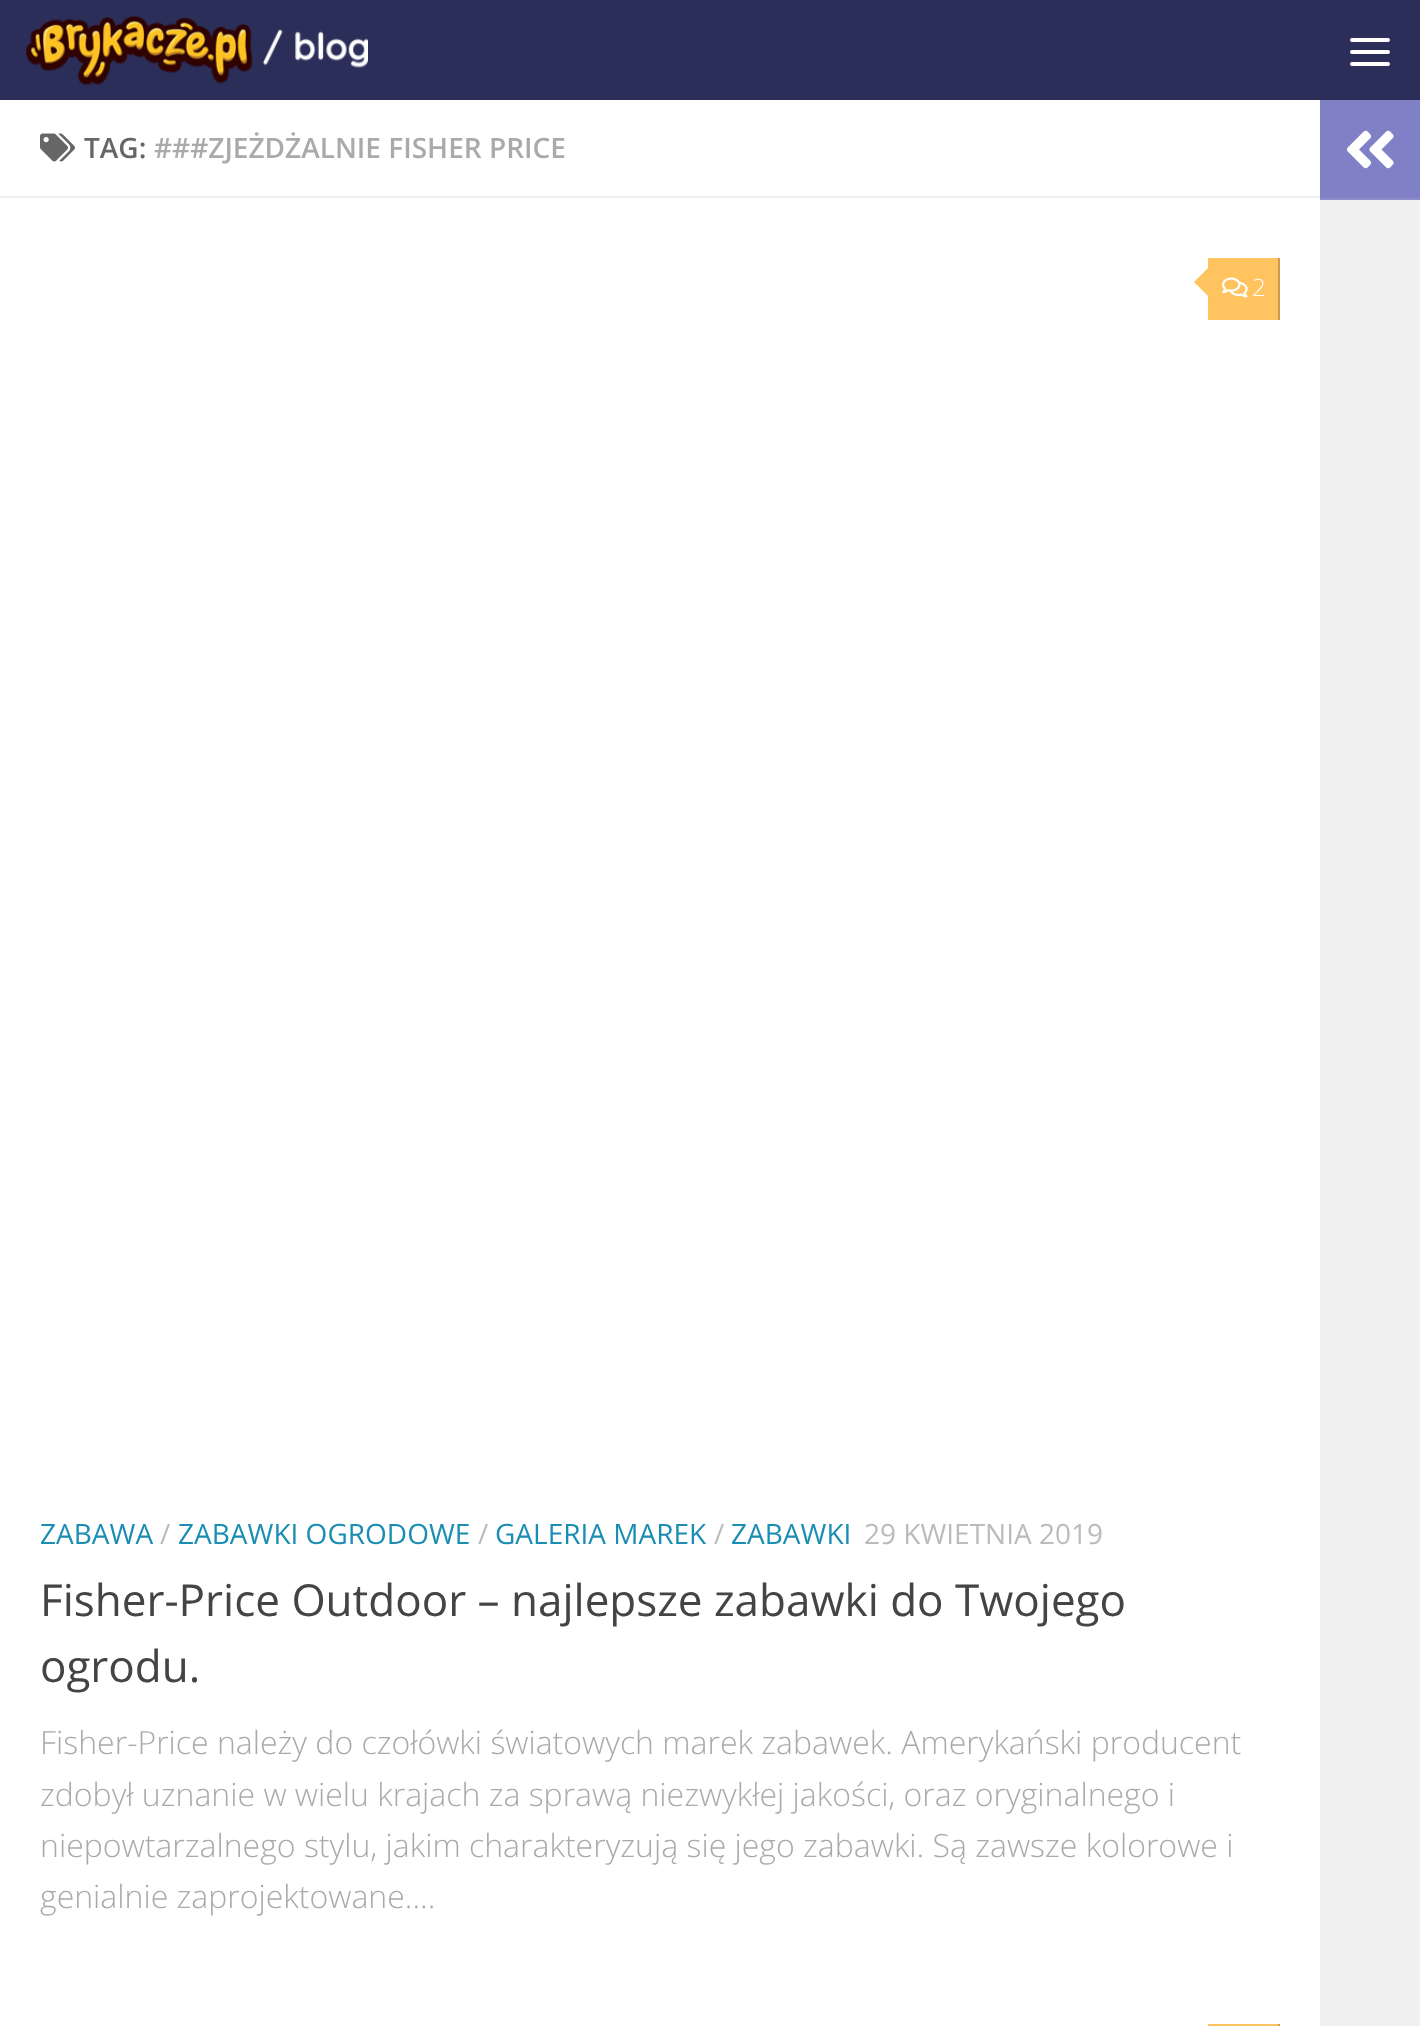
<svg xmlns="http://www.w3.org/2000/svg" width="1420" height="2026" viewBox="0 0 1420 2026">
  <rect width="100%" height="100%" fill="#ffffff"/>
  <rect x="0" y="0" width="1420" height="100" fill="#2a2e58"/>
  <image x="26" y="16" width="342" height="69" href="img1.png"/>
  <rect x="1350" y="38" width="40" height="4" rx="2" fill="#ffffff"/>
  <rect x="1350" y="50" width="40" height="4" rx="2" fill="#ffffff"/>
  <rect x="1350" y="62" width="40" height="4" rx="2" fill="#ffffff"/>
  <rect x="0" y="196" width="1320" height="2" fill="#eeeeee"/>
  <image x="40" y="133" width="35" height="29" href="img2.png"/>
  <text x="84" y="158" font-family="Open Sans" font-size="28" font-weight="600" fill="#666666">TAG:</text>
  <text x="154" y="158" font-family="Open Sans" font-size="28" font-weight="600" fill="#aaaaaa">###ZJEŻDŻALNIE FISHER PRICE</text>
  <rect x="1208" y="258" width="70" height="62" fill="#ffc35f"/>
  <rect x="1278" y="258" width="2" height="62" fill="#cc9c4c"/>
  <path d="M1212 264V300L1194 282Z" fill="#ffc35f"/>
  <image x="1222" y="277" width="26" height="21" href="img3.png"/>
  <text x="1252" y="296" font-family="Open Sans" font-size="24" font-weight="300" fill="#ffffff">2</text>
  <text x="40" y="1544" font-family="Open Sans" font-size="28" fill="#1a8db3">ZABAWA</text>
  <text x="160" y="1544" font-family="Open Sans" font-size="28" fill="#bbbbbb">/</text>
  <text x="178" y="1544" font-family="Open Sans" font-size="28" fill="#1a8db3">ZABAWKI OGRODOWE</text>
  <text x="478" y="1544" font-family="Open Sans" font-size="28" fill="#bbbbbb">/</text>
  <text x="495" y="1544" font-family="Open Sans" font-size="28" fill="#1a8db3">GALERIA MAREK</text>
  <text x="714" y="1544" font-family="Open Sans" font-size="28" fill="#bbbbbb">/</text>
  <text x="731" y="1544" font-family="Open Sans" font-size="28" fill="#1a8db3">ZABAWKI</text>
  <text x="864" y="1544" font-family="Open Sans" font-size="28" fill="#bbbbbb">29 KWIETNIA 2019</text>
  <text x="40" y="1616" font-family="Open Sans" font-size="44" fill="#444444">Fisher-Price Outdoor – najlepsze zabawki do Twojego</text>
  <text x="40" y="1682" font-family="Open Sans" font-size="44" fill="#444444">ogrodu.</text>
  <text x="40" y="1754" font-family="Open Sans" font-size="32" font-weight="300" fill="#aaaaaa">Fisher-Price należy do czołówki światowych marek zabawek. Amerykański producent</text>
  <text x="40" y="1806" font-family="Open Sans" font-size="32" font-weight="300" fill="#aaaaaa">zdobył uznanie w wielu krajach za sprawą niezwykłej jakości, oraz oryginalnego i</text>
  <text x="40" y="1857" font-family="Open Sans" font-size="32" font-weight="300" fill="#aaaaaa">niepowtarzalnego stylu, jakim charakteryzują się jego zabawki. Są zawsze kolorowe i</text>
  <text x="40" y="1908" font-family="Open Sans" font-size="32" font-weight="300" fill="#aaaaaa">genialnie zaprojektowane....</text>
  <rect x="1208" y="2024" width="72" height="2" fill="#ffc35f"/>
  <rect x="1278" y="2024" width="2" height="2" fill="#cc9c4c"/>
  <rect x="1320" y="100" width="100" height="98" fill="#8080c6"/>
  <rect x="1320" y="198" width="100" height="2" fill="#8d8dcc"/>
  <image x="1347" y="130" width="47" height="39" href="img4.png"/>
  <rect x="1320" y="200" width="100" height="1826" fill="#f0f0f0"/>
</svg>
